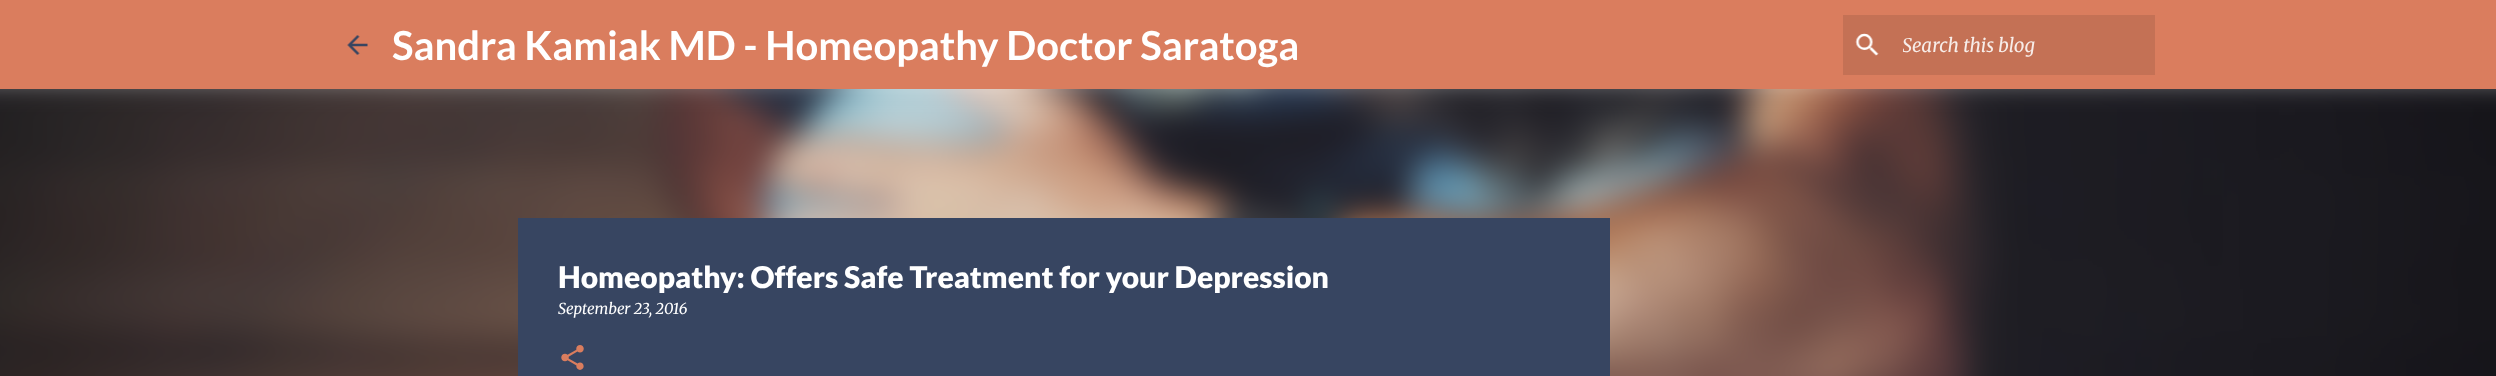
<svg xmlns="http://www.w3.org/2000/svg" width="2496" height="376" viewBox="0 0 2496 376">
  <defs>
    <clipPath id="clip1"><rect x="1903" y="34" width="242" height="24"/></clipPath>
  </defs>
  <rect width="100%" height="100%" fill="#ffffff"/>
  <rect x="0" y="0" width="2496" height="89" fill="#da7d5e"/>
  <image x="347" y="35" width="21" height="20" href="img1.png"/>
  <text x="392" y="60" font-family="Lato" font-size="40" font-weight="bold" fill="#ffffff">Sandra Kamiak MD - Homeopathy Doctor Saratoga</text>
  <rect x="1843" y="15" width="312" height="60" fill="#c47155"/>
  <image x="1855" y="33" width="24" height="23" href="img2.png"/>
  <g clip-path="url(#clip1)">
    <text x="1902" y="52" font-family="Merriweather" font-size="18.75" font-style="italic" fill="#f7ede9">Search this blog</text>
  </g>
  <image x="0" y="89" width="2496" height="287" href="img4.png"/>
  <rect x="518" y="218" width="1092" height="158" fill="#374561"/>
  <text x="558" y="288" font-family="Lato" font-size="30" font-weight="900" fill="#ffffff">Homeopathy: Offers Safe Treatment for your Depression</text>
  <text x="558" y="314" font-family="Merriweather" font-size="15" font-style="italic" fill="#ffffff">September 23, 2016</text>
  <image x="561" y="345" width="23" height="25" href="img3.png"/>
</svg>
